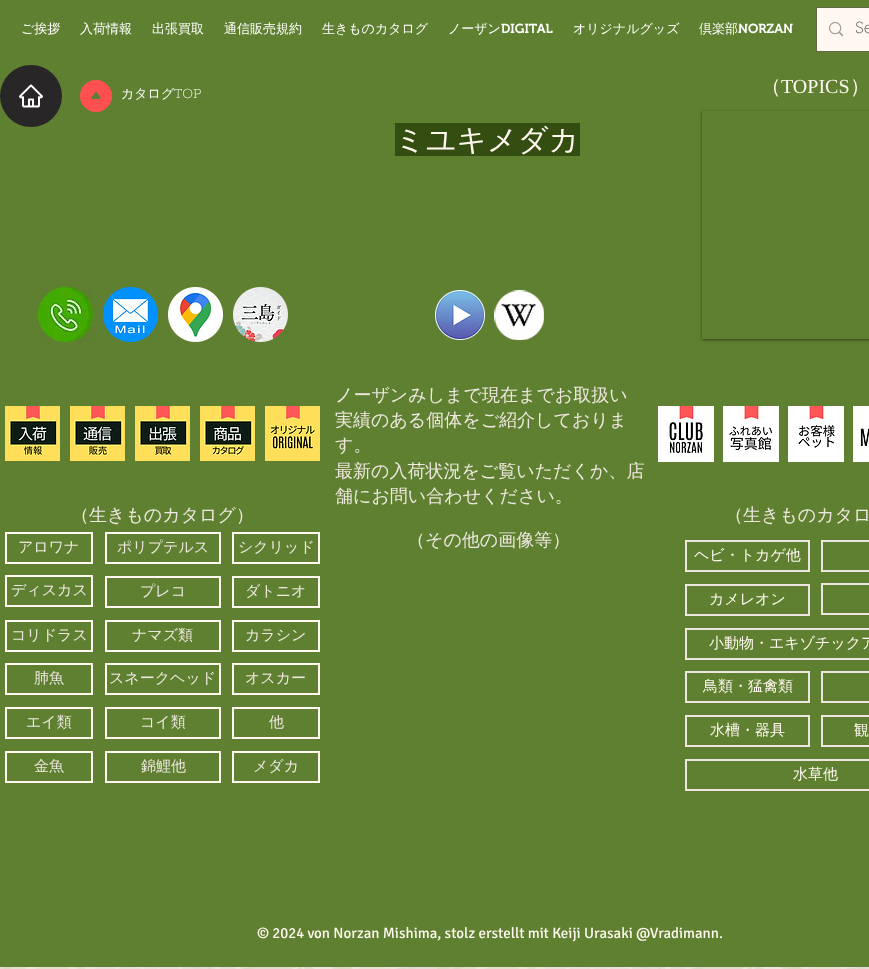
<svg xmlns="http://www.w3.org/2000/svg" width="869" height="969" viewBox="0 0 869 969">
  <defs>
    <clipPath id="clip1"><path d="M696 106H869V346H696ZM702 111H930V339H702Z" clip-rule="evenodd"/></clipPath>
    <filter id="blur1" x="-50%" y="-200%" width="200%" height="500%"><feGaussianBlur stdDeviation="1.5"/></filter>
  </defs>
  <rect width="100%" height="100%" fill="#eee7df"/>
  <rect x="0" y="0" width="869" height="54" fill="#5f8031"/>
  <text x="21" y="33" font-family="WenQuanYi Zen Hei" font-size="13" font-weight="500" fill="#ffffff">ご挨拶</text>
  <text x="80" y="33" font-family="WenQuanYi Zen Hei" font-size="13" font-weight="500" fill="#ffffff">入荷情報</text>
  <text x="152" y="33" font-family="WenQuanYi Zen Hei" font-size="13" font-weight="500" fill="#ffffff">出張買取</text>
  <text x="224" y="33" font-family="WenQuanYi Zen Hei" font-size="13" font-weight="500" fill="#ffffff">通信販売規約</text>
  <text x="322" y="33" font-family="WenQuanYi Zen Hei" font-size="13" font-weight="500" fill="#ffffff">生きものカタログ</text>
  <text x="448" y="33" font-family="WenQuanYi Zen Hei" font-size="13" font-weight="500" fill="#ffffff">ノーザン</text>
  <text x="501" y="33" font-family="'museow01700'" font-size="13" font-weight="600" fill="#ffffff">DIGITAL</text>
  <text x="573" y="33" font-family="WenQuanYi Zen Hei" font-size="13" font-weight="500" fill="#ffffff">オリジナルグッズ</text>
  <text x="699" y="33" font-family="WenQuanYi Zen Hei" font-size="13" font-weight="500" fill="#ffffff">倶楽部</text>
  <text x="738" y="33" font-family="'museow01700'" font-size="13" font-weight="600" fill="#ffffff">NORZAN</text>
  <rect x="816.5" y="7.5" width="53" height="44" fill="none" stroke="#616944"/>
  <rect x="817" y="8" width="52" height="43" fill="#fff8f0"/>
  <image x="829" y="22" width="14" height="15" href="img1.png"/>
  <text x="855" y="33" font-family="'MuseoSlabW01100'" font-size="16" font-weight="100" fill="#635a50">Se</text>
  <rect x="0" y="54" width="869" height="311" fill="#5f8031"/>
  <circle cx="31" cy="96" r="31" fill="#282626"/>
  <image x="19" y="84" width="24" height="24" href="img2.png"/>
  <image x="80" y="80" width="32" height="32" href="img3.png"/>
  <text x="121" y="98" font-family="WenQuanYi Zen Hei" font-size="13" font-weight="500" fill="#ffffff">カタログ</text>
  <text x="174" y="98" font-family="'MuseoSlabW01100'" font-size="13" font-weight="100" fill="#ffffff">TOP</text>
  <image x="38" y="287" width="55" height="55" href="img4.png"/>
  <image x="103" y="287" width="55" height="55" href="img5.png"/>
  <image x="168" y="287" width="55" height="55" href="img6.png"/>
  <image x="233" y="287" width="55" height="55" href="img7.png"/>
  <text x="761" y="93" font-family="WenQuanYi Zen Hei" font-size="20" font-weight="500" fill="#fff8f0">（</text>
  <text x="781" y="93" font-family="Liberation Serif" font-size="20" fill="#fff8f0">TOPICS</text>
  <text x="850" y="93" font-family="WenQuanYi Zen Hei" font-size="20" font-weight="500" fill="#fff8f0">）</text>
  <g clip-path="url(#clip1)">
    <rect x="702" y="112" width="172" height="228" fill="#000000" fill-opacity="0.5" filter="url(#blur1)"/>
  </g>
  <rect x="395" y="123" width="185" height="33" fill="#344d10"/>
  <text x="395" y="150" font-family="WenQuanYi Zen Hei" font-size="30" font-weight="500" fill="#fff8f0">ミユキメダカ</text>
  <image x="435" y="290" width="50" height="50" href="img8.png"/>
  <image x="494" y="290" width="50" height="50" href="img9.png"/>
  <rect x="0" y="365" width="869" height="602" fill="#5f8031"/>
  <text x="335" y="401" font-family="WenQuanYi Zen Hei" font-size="18" font-weight="500" fill="#eee7df">ノーザンみしまで現在までお取扱い</text>
  <text x="335" y="426" font-family="WenQuanYi Zen Hei" font-size="18" font-weight="500" fill="#eee7df">実績のある個体をご紹介しておりま</text>
  <text x="335" y="451" font-family="WenQuanYi Zen Hei" font-size="18" font-weight="500" fill="#eee7df">す。</text>
  <text x="335" y="477" font-family="WenQuanYi Zen Hei" font-size="18" font-weight="500" fill="#eee7df">最新の入荷状況をご覧いただくか、店</text>
  <text x="335" y="502" font-family="WenQuanYi Zen Hei" font-size="18" font-weight="500" fill="#eee7df">舗にお問い合わせください。</text>
  <text x="407" y="546" font-family="WenQuanYi Zen Hei" font-size="18" font-weight="500" fill="#eee7df">（その他の画像等）</text>
  <image x="5" y="406" width="55" height="55" href="img10.png"/>
  <image x="70" y="406" width="55" height="55" href="img11.png"/>
  <image x="135" y="406" width="55" height="55" href="img12.png"/>
  <image x="200" y="406" width="55" height="55" href="img13.png"/>
  <image x="265" y="406" width="55" height="55" href="img14.png"/>
  <text x="71" y="521" font-family="WenQuanYi Zen Hei" font-size="18" font-weight="500" fill="#eee7df">（生きものカタログ）</text>
  <rect x="6" y="533" width="86" height="30" fill="none" stroke="#fff8f0" stroke-width="2"/>
  <text x="18" y="552" font-family="WenQuanYi Zen Hei" font-size="15" font-weight="500" fill="#eee7df">アロワナ</text>
  <rect x="106" y="533" width="114" height="30" fill="none" stroke="#fff8f0" stroke-width="2"/>
  <text x="117" y="552" font-family="WenQuanYi Zen Hei" font-size="15" font-weight="500" fill="#eee7df">ポリプテルス</text>
  <rect x="233" y="533" width="86" height="30" fill="none" stroke="#fff8f0" stroke-width="2"/>
  <text x="238" y="552" font-family="WenQuanYi Zen Hei" font-size="15" font-weight="500" fill="#eee7df">シクリッド</text>
  <rect x="6" y="576" width="86" height="30" fill="none" stroke="#fff8f0" stroke-width="2"/>
  <text x="11" y="595" font-family="WenQuanYi Zen Hei" font-size="15" font-weight="500" fill="#eee7df">ディスカス</text>
  <rect x="106" y="577" width="114" height="30" fill="none" stroke="#fff8f0" stroke-width="2"/>
  <text x="140" y="596" font-family="WenQuanYi Zen Hei" font-size="15" font-weight="500" fill="#eee7df">プレコ</text>
  <rect x="233" y="577" width="86" height="30" fill="none" stroke="#fff8f0" stroke-width="2"/>
  <text x="245" y="596" font-family="WenQuanYi Zen Hei" font-size="15" font-weight="500" fill="#eee7df">ダトニオ</text>
  <rect x="6" y="621" width="86" height="30" fill="none" stroke="#fff8f0" stroke-width="2"/>
  <text x="11" y="640" font-family="WenQuanYi Zen Hei" font-size="15" font-weight="500" fill="#eee7df">コリドラス</text>
  <rect x="106" y="621" width="114" height="30" fill="none" stroke="#fff8f0" stroke-width="2"/>
  <text x="132" y="640" font-family="WenQuanYi Zen Hei" font-size="15" font-weight="500" fill="#eee7df">ナマズ類</text>
  <rect x="233" y="621" width="86" height="30" fill="none" stroke="#fff8f0" stroke-width="2"/>
  <text x="245" y="640" font-family="WenQuanYi Zen Hei" font-size="15" font-weight="500" fill="#eee7df">カラシン</text>
  <rect x="6" y="664" width="86" height="30" fill="none" stroke="#fff8f0" stroke-width="2"/>
  <text x="34" y="683" font-family="WenQuanYi Zen Hei" font-size="15" font-weight="500" fill="#eee7df">肺魚</text>
  <rect x="106" y="664" width="114" height="30" fill="none" stroke="#fff8f0" stroke-width="2"/>
  <text x="109" y="683" font-family="WenQuanYi Zen Hei" font-size="15" font-weight="500" fill="#eee7df">スネークヘッド</text>
  <rect x="233" y="664" width="86" height="30" fill="none" stroke="#fff8f0" stroke-width="2"/>
  <text x="245" y="683" font-family="WenQuanYi Zen Hei" font-size="15" font-weight="500" fill="#eee7df">オスカー</text>
  <rect x="6" y="708" width="86" height="30" fill="none" stroke="#fff8f0" stroke-width="2"/>
  <text x="26" y="727" font-family="WenQuanYi Zen Hei" font-size="15" font-weight="500" fill="#eee7df">エイ類</text>
  <rect x="106" y="708" width="114" height="30" fill="none" stroke="#fff8f0" stroke-width="2"/>
  <text x="140" y="727" font-family="WenQuanYi Zen Hei" font-size="15" font-weight="500" fill="#eee7df">コイ類</text>
  <rect x="233" y="708" width="86" height="30" fill="none" stroke="#fff8f0" stroke-width="2"/>
  <text x="269" y="727" font-family="WenQuanYi Zen Hei" font-size="15" font-weight="500" fill="#eee7df">他</text>
  <rect x="6" y="752" width="86" height="30" fill="none" stroke="#fff8f0" stroke-width="2"/>
  <text x="34" y="771" font-family="WenQuanYi Zen Hei" font-size="15" font-weight="500" fill="#eee7df">金魚</text>
  <rect x="106" y="752" width="114" height="30" fill="none" stroke="#fff8f0" stroke-width="2"/>
  <text x="141" y="771" font-family="WenQuanYi Zen Hei" font-size="15" font-weight="500" fill="#eee7df">錦鯉他</text>
  <rect x="233" y="752" width="86" height="30" fill="none" stroke="#fff8f0" stroke-width="2"/>
  <text x="253" y="771" font-family="WenQuanYi Zen Hei" font-size="15" font-weight="500" fill="#eee7df">メダカ</text>
  <image x="658" y="406" width="56" height="56" href="img15.png"/>
  <image x="723" y="406" width="56" height="56" href="img16.png"/>
  <image x="788" y="406" width="56" height="56" href="img17.png"/>
  <image x="853" y="406" width="16" height="56" href="img18.png"/>
  <text x="725" y="521" font-family="WenQuanYi Zen Hei" font-size="18" font-weight="500" fill="#eee7df">（生きものカタロ</text>
  <rect x="686" y="541" width="123" height="30" fill="none" stroke="#eee7df" stroke-width="2"/>
  <text x="694" y="560" font-family="WenQuanYi Zen Hei" font-size="15" font-weight="500" fill="#fff8f0">ヘビ・トカゲ他</text>
  <rect x="822" y="541" width="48" height="30" fill="none" stroke="#eee7df" stroke-width="2"/>
  <rect x="686" y="585" width="123" height="30" fill="none" stroke="#eee7df" stroke-width="2"/>
  <text x="709" y="604" font-family="WenQuanYi Zen Hei" font-size="15" font-weight="500" fill="#fff8f0">カメレオン</text>
  <rect x="822" y="584" width="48" height="30" fill="none" stroke="#eee7df" stroke-width="2"/>
  <rect x="686" y="629" width="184" height="30" fill="none" stroke="#eee7df" stroke-width="2"/>
  <text x="709" y="648" font-family="WenQuanYi Zen Hei" font-size="15" font-weight="500" fill="#fff8f0">小動物・エキゾチックア</text>
  <rect x="686" y="672" width="123" height="30" fill="none" stroke="#eee7df" stroke-width="2"/>
  <text x="703" y="691" font-family="WenQuanYi Zen Hei" font-size="15" font-weight="500" fill="#fff8f0">鳥類・猛禽類</text>
  <rect x="822" y="672" width="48" height="30" fill="none" stroke="#eee7df" stroke-width="2"/>
  <rect x="686" y="716" width="123" height="30" fill="none" stroke="#eee7df" stroke-width="2"/>
  <text x="710" y="735" font-family="WenQuanYi Zen Hei" font-size="15" font-weight="500" fill="#fff8f0">水槽・器具</text>
  <rect x="822" y="716" width="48" height="30" fill="none" stroke="#eee7df" stroke-width="2"/>
  <text x="854" y="735" font-family="WenQuanYi Zen Hei" font-size="15" font-weight="500" fill="#fff8f0">観</text>
  <rect x="686" y="760" width="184" height="30" fill="none" stroke="#eee7df" stroke-width="2"/>
  <text x="793" y="779" font-family="WenQuanYi Zen Hei" font-size="15" font-weight="500" fill="#fff8f0">水草他</text>
  <text x="257" y="938" font-family="Signika" font-size="15" fill="#fff8f0">© 2024 von Norzan Mishima, stolz erstellt mit Keiji Urasaki @Vradimann.</text>
  <image x="0" y="967" width="869" height="2" href="img19.png"/>
</svg>
